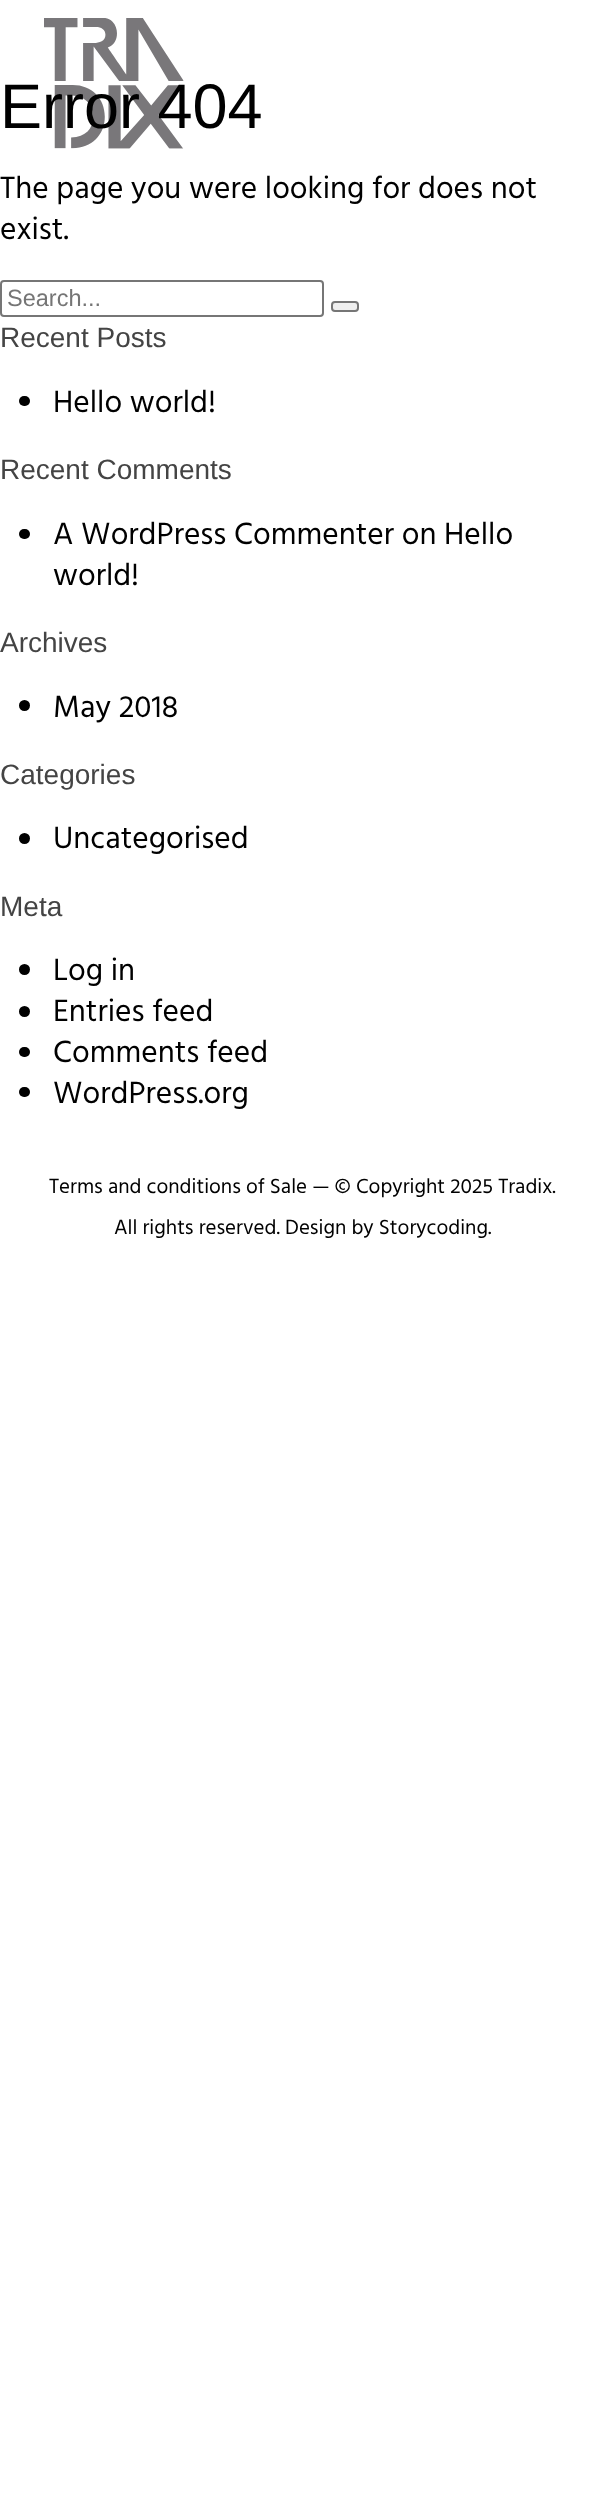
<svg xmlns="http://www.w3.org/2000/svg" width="604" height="2508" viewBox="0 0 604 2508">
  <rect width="100%" height="100%" fill="#ffffff"/>
  <image x="44" y="18" width="140" height="131" href="img1.png"/>
  <text x="0" y="128" font-family="Liberation Sans" font-size="63" fill="#000000">Error 404</text>
  <text x="0" y="198" font-family="Hind" font-size="31.5" fill="#000000">The page you were looking for does not</text>
  <text x="0" y="239" font-family="Hind" font-size="31.5" fill="#000000">exist.</text>
  <rect x="1" y="281" width="322" height="35" rx="3" fill="none" stroke="#767676" stroke-width="2"/>
  <text x="7" y="306" font-family="Liberation Sans" font-size="23.5" fill="#757575">Search...</text>
  <rect x="332" y="302" width="26" height="9" rx="3" fill="#efefef" stroke="#767676" stroke-width="2"/>
  <text x="0" y="347" font-family="Liberation Sans" font-size="28" fill="#444444">Recent Posts</text>
  <rect x="19" y="396" width="11" height="10" rx="5" fill="#000000"/>
  <text x="53" y="412" font-family="Hind" font-size="31.5" fill="#000000">Hello world!</text>
  <text x="0" y="479" font-family="Liberation Sans" font-size="28" fill="#444444">Recent Comments</text>
  <rect x="19" y="529" width="11" height="10" rx="5" fill="#000000"/>
  <text x="53" y="544" font-family="Hind" font-size="31.5" fill="#000000">A WordPress Commenter on Hello</text>
  <text x="53" y="585" font-family="Hind" font-size="31.5" fill="#000000">world!</text>
  <text x="0" y="652" font-family="Liberation Sans" font-size="28" fill="#444444">Archives</text>
  <circle cx="24.5" cy="705.5" r="5.5" fill="#000000"/>
  <text x="53" y="717" font-family="Hind" font-size="31.5" fill="#000000">May 2018</text>
  <text x="0" y="784" font-family="Liberation Sans" font-size="28" fill="#444444">Categories</text>
  <circle cx="24.5" cy="838.5" r="5.5" fill="#000000"/>
  <text x="53" y="848" font-family="Hind" font-size="31.5" fill="#000000">Uncategorised</text>
  <text x="0" y="916" font-family="Liberation Sans" font-size="28" fill="#444444">Meta</text>
  <circle cx="24.5" cy="969.5" r="5.5" fill="#000000"/>
  <text x="53" y="980" font-family="Hind" font-size="31.5" fill="#000000">Log in</text>
  <circle cx="24.5" cy="1011.5" r="5.5" fill="#000000"/>
  <text x="53" y="1021" font-family="Hind" font-size="31.5" fill="#000000">Entries feed</text>
  <rect x="19" y="1047" width="11" height="10" rx="5" fill="#000000"/>
  <text x="53" y="1062" font-family="Hind" font-size="31.5" fill="#000000">Comments feed</text>
  <rect x="19" y="1087" width="11" height="10" rx="5" fill="#000000"/>
  <text x="53" y="1103" font-family="Hind" font-size="31.5" fill="#000000">WordPress.org</text>
  <text x="49" y="1193" font-family="Hind" font-size="21" fill="#000000">Terms and conditions of Sale — © Copyright 2025 Tradix.</text>
  <text x="114" y="1234" font-family="Hind" font-size="21" fill="#000000">All rights reserved. Design by Storycoding.</text>
</svg>
